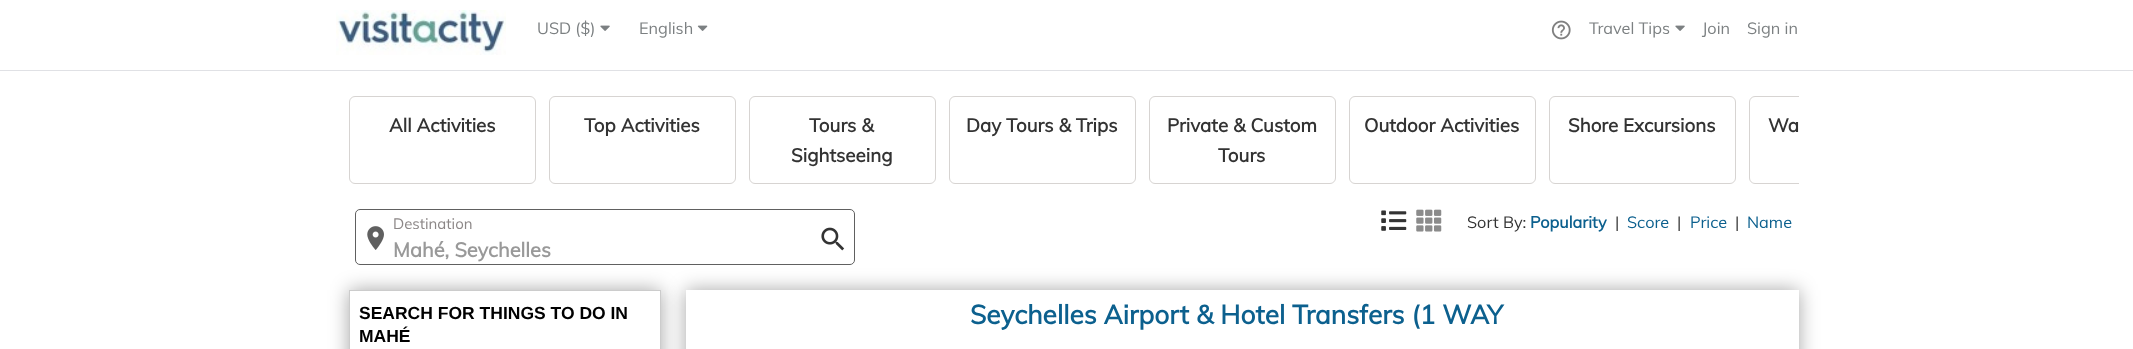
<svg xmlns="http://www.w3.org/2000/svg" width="2133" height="349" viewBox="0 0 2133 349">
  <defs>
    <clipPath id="clip1"><rect x="336" y="71" width="1463" height="113"/></clipPath>
    <filter id="blur1" x="-50%" y="-200%" width="200%" height="500%"><feGaussianBlur stdDeviation="9.5"/></filter>
    <clipPath id="clip2"><path d="M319 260H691V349H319ZM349 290H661V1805H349Z" clip-rule="evenodd"/></clipPath>
  </defs>
  <rect width="100%" height="100%" fill="#ffffff"/>
  <image x="336" y="10" width="170" height="45" href="img1.png"/>
  <text x="537" y="34" font-family="Muli" font-size="16.25" fill="#7c8082">USD ($)</text>
  <image x="600" y="25" width="10" height="6" href="img2.png"/>
  <text x="639" y="34" font-family="Muli" font-size="16.25" fill="#7c8082">English</text>
  <image x="697" y="25" width="11" height="6" href="img3.png"/>
  <image x="1551" y="20" width="20" height="20" href="img4.png"/>
  <text x="1589" y="34" font-family="Muli" font-size="16.25" fill="#7c8082">Travel Tips</text>
  <image x="1675" y="25" width="10" height="6" href="img2.png"/>
  <text x="1702" y="34" font-family="Muli" font-size="16.25" fill="#7c8082">Join</text>
  <text x="1747" y="34" font-family="Muli" font-size="16.25" fill="#7c8082">Sign in</text>
  <rect x="0" y="70" width="2133" height="1" fill="#e0e1e5"/>
  <rect x="349.5" y="96.5" width="186" height="87" rx="5.5" fill="none" stroke="#d7d4d2"/>
  <text x="389" y="132" font-family="Muli" font-size="18.75" font-weight="bold" fill="#333333">All Activities</text>
  <rect x="549.5" y="96.5" width="186" height="87" rx="5.5" fill="none" stroke="#d7d4d2"/>
  <text x="584" y="132" font-family="Muli" font-size="18.75" font-weight="bold" fill="#333333">Top Activities</text>
  <rect x="749.5" y="96.5" width="186" height="87" rx="5.5" fill="none" stroke="#d7d4d2"/>
  <text x="809" y="132" font-family="Muli" font-size="18.75" font-weight="bold" fill="#333333">Tours &amp;</text>
  <text x="791" y="162" font-family="Muli" font-size="18.75" font-weight="bold" fill="#333333">Sightseeing</text>
  <rect x="949.5" y="96.5" width="186" height="87" rx="5.5" fill="none" stroke="#d7d4d2"/>
  <text x="966" y="132" font-family="Muli" font-size="18.75" font-weight="bold" fill="#333333">Day Tours &amp; Trips</text>
  <rect x="1149.5" y="96.5" width="186" height="87" rx="5.5" fill="none" stroke="#d7d4d2"/>
  <text x="1167" y="132" font-family="Muli" font-size="18.75" font-weight="bold" fill="#333333">Private &amp; Custom</text>
  <text x="1218" y="162" font-family="Muli" font-size="18.75" font-weight="bold" fill="#333333">Tours</text>
  <rect x="1349.5" y="96.5" width="186" height="87" rx="5.5" fill="none" stroke="#d7d4d2"/>
  <text x="1364" y="132" font-family="Muli" font-size="18.75" font-weight="bold" fill="#333333">Outdoor Activities</text>
  <rect x="1549.5" y="96.5" width="186" height="87" rx="5.5" fill="none" stroke="#d7d4d2"/>
  <text x="1568" y="132" font-family="Muli" font-size="18.75" font-weight="bold" fill="#333333">Shore Excursions</text>
  <g clip-path="url(#clip1)">
    <rect x="1749.5" y="96.5" width="186" height="87" rx="5.5" fill="none" stroke="#d7d4d2"/>
  </g>
  <text x="1768" y="132" font-family="Muli" font-size="18.75" font-weight="bold" fill="#333333">Wa</text>
  <rect x="355.5" y="209.5" width="499" height="55" rx="4.5" fill="none" stroke="#606060"/>
  <text x="393" y="229" font-family="Muli" font-size="15" fill="#8c8787">Destination</text>
  <image x="367" y="226" width="17" height="24" href="img5.png"/>
  <text x="393" y="257" font-family="Muli" font-size="20" font-weight="bold" fill="#999999">Mahé, Seychelles</text>
  <image x="821" y="227" width="24" height="24" href="img6.png"/>
  <image x="1381" y="210" width="26" height="21" href="img7.png"/>
  <image x="1416" y="209" width="26" height="23" href="img8.png"/>
  <text x="1467" y="228" font-family="Muli" font-size="16.25" fill="#333333">Sort By:</text>
  <text x="1530" y="228" font-family="Muli" font-size="16.25" font-weight="bold" fill="#0c608e">Popularity</text>
  <text x="1615" y="228" font-family="Muli" font-size="16.25" fill="#333333">|</text>
  <text x="1627" y="228" font-family="Muli" font-size="16.25" fill="#0c608e">Score</text>
  <text x="1677" y="228" font-family="Muli" font-size="16.25" fill="#333333">|</text>
  <text x="1690" y="228" font-family="Muli" font-size="16.25" fill="#0c608e">Price</text>
  <text x="1735" y="228" font-family="Muli" font-size="16.25" fill="#333333">|</text>
  <text x="1747" y="228" font-family="Muli" font-size="16.25" fill="#0c608e">Name</text>
  <rect x="686" y="290" width="1113" height="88" fill="#000000" fill-opacity="0.35" filter="url(#blur1)"/>
  <rect x="686" y="290" width="1113" height="59" fill="#ffffff"/>
  <g clip-path="url(#clip2)">
    <rect x="349" y="290" width="312" height="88" fill="#000000" fill-opacity="0.35" filter="url(#blur1)"/>
  </g>
  <rect x="349.5" y="290.5" width="311" height="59" fill="none" stroke="#cccccc"/>
  <text x="359" y="319" font-family="Liberation Sans" font-size="17.5" font-weight="bold" fill="#000000">SEARCH FOR THINGS TO DO IN</text>
  <text x="359" y="342" font-family="Liberation Sans" font-size="17.5" font-weight="bold" fill="#000000">MAHÉ</text>
  <text x="970" y="324" font-family="Muli" font-size="26.25" font-weight="bold" fill="#0c608e">Seychelles Airport &amp; Hotel Transfers (1 WAY</text>
</svg>
